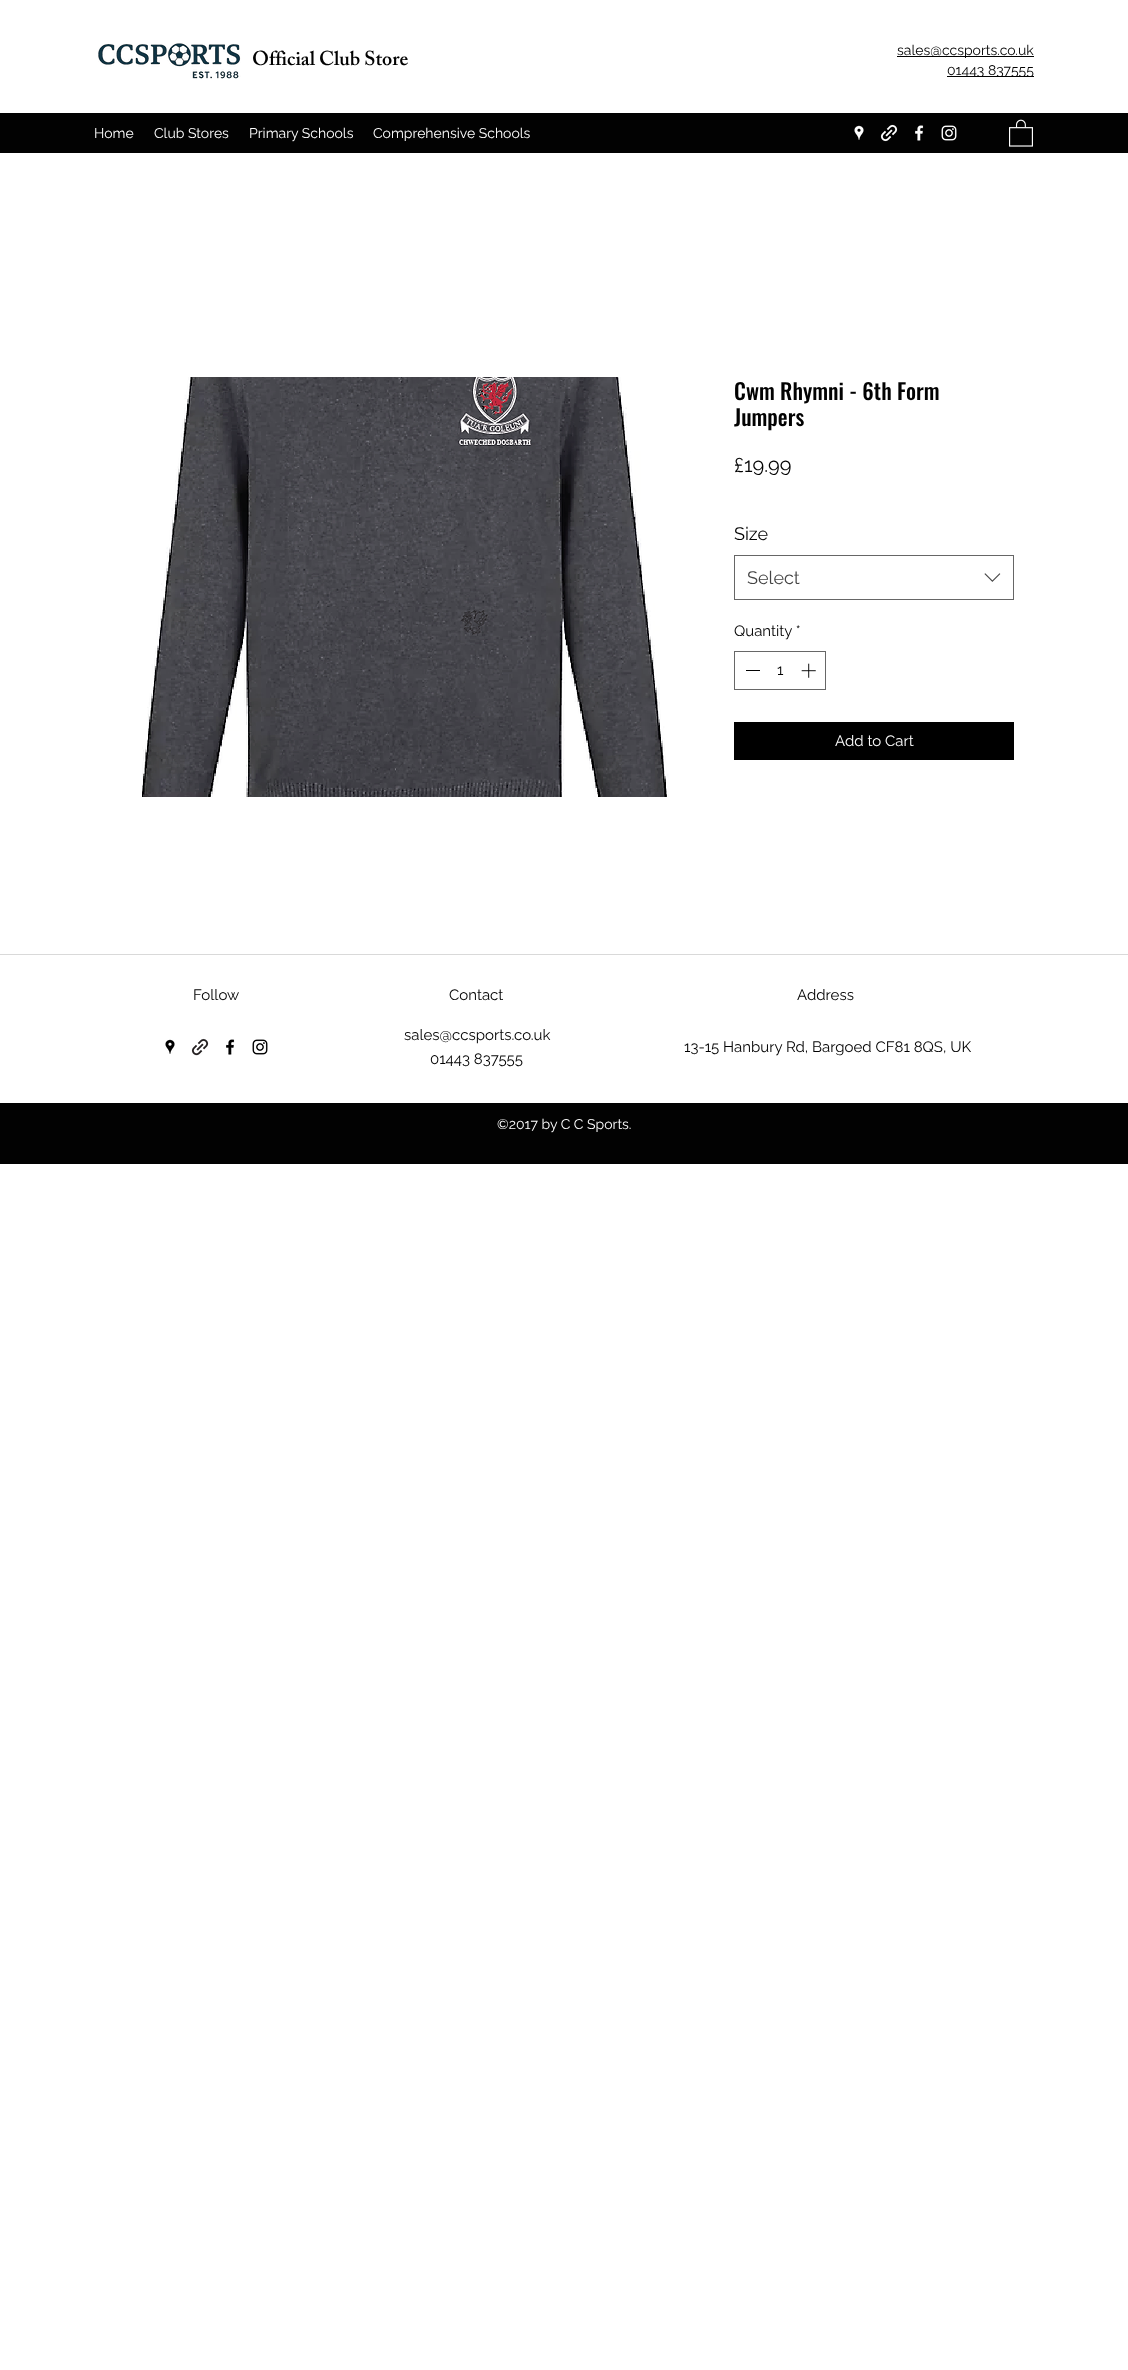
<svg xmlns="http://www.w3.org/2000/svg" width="1128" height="2370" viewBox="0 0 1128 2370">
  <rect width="100%" height="100%" fill="#ffffff"/>
  <image x="98" y="43" width="143" height="36" href="img1.png"/>
  <text x="252" y="65" font-family="'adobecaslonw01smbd'" font-size="20" font-weight="600" fill="#020202">Official Club Store</text>
  <rect x="897" y="56" width="137" height="1" fill="#020202"/>
  <text x="897" y="55" font-family="Raleway" font-size="14" fill="#020202">sales@ccsports.co.uk</text>
  <rect x="947" y="76" width="87" height="1" fill="#020202"/>
  <text x="947" y="75" font-family="Raleway" font-size="14" fill="#020202">01443 837555</text>
  <rect x="0" y="113" width="1128" height="40" fill="#020202"/>
  <text x="94" y="138" font-family="Raleway" font-size="14" fill="#ffffff">Home</text>
  <text x="154" y="138" font-family="Raleway" font-size="14" fill="#ffffff">Club Stores</text>
  <text x="249" y="138" font-family="Raleway" font-size="14" fill="#ffffff">Primary Schools</text>
  <text x="373" y="138" font-family="Raleway" font-size="14" fill="#ffffff">Comprehensive Schools</text>
  <image x="854" y="125" width="10" height="15" href="img2.png"/>
  <image x="880" y="124" width="18" height="18" href="img3.png"/>
  <image x="915" y="125" width="9" height="16" href="img4.png"/>
  <image x="941" y="125" width="16" height="16" href="img5.png"/>
  <image x="1009" y="119" width="24" height="28" href="img6.png"/>
  <image x="142" y="377" width="527" height="420" href="img7.png"/>
  <text x="734" y="400" font-family="Oswald" font-size="22" font-weight="500" fill="#020202">Cwm Rhymni - 6th Form</text>
  <text x="734" y="426" font-family="Oswald" font-size="22" font-weight="500" fill="#020202">Jumpers</text>
  <text x="734" y="472" font-family="Raleway" font-size="20" fill="#020202">£19.99</text>
  <text x="734" y="540" font-family="Raleway" font-size="18" fill="#020202">Size</text>
  <rect x="734.5" y="555.5" width="279" height="44" fill="none" stroke="#666666"/>
  <text x="747" y="584" font-family="Raleway" font-size="18" fill="#444444">Select</text>
  <image x="984" y="573" width="17" height="9" href="img8.png"/>
  <text x="734" y="636" font-family="Raleway" font-size="15" fill="#020202">Quantity *</text>
  <rect x="734.5" y="651.5" width="91" height="38" fill="none" stroke="#676767"/>
  <rect x="746" y="670" width="14" height="1" fill="#020202"/>
  <text x="777" y="675" font-family="Raleway" font-size="15" fill="#020202">1</text>
  <image x="801" y="663" width="15" height="15" href="img9.png"/>
  <rect x="734" y="722" width="280" height="38" fill="#000000"/>
  <text x="835" y="746" font-family="Raleway" font-size="15" fill="#ffffff">Add to Cart</text>
  <rect x="0" y="954" width="1128" height="1" fill="#d9d9d9"/>
  <text x="193" y="1000" font-family="Raleway" font-size="15" fill="#020202">Follow</text>
  <text x="449" y="1000" font-family="Raleway" font-size="15" fill="#020202">Contact</text>
  <text x="797" y="1000" font-family="Raleway" font-size="15" fill="#020202">Address</text>
  <text x="404" y="1040" font-family="Raleway" font-size="15" fill="#020202">sales@ccsports.co.uk</text>
  <image x="165" y="1039" width="10" height="15" href="img10.png"/>
  <image x="191" y="1038" width="18" height="18" href="img11.png"/>
  <image x="226" y="1039" width="9" height="16" href="img12.png"/>
  <image x="252" y="1039" width="16" height="16" href="img13.png"/>
  <text x="684" y="1052" font-family="Raleway" font-size="15" fill="#020202">13-15 Hanbury Rd, Bargoed CF81 8QS, UK</text>
  <text x="430" y="1064" font-family="Raleway" font-size="15" fill="#020202">01443 837555</text>
  <rect x="0" y="1103" width="1128" height="61" fill="#020202"/>
  <text x="497" y="1129" font-family="Raleway" font-size="14" fill="#ffffff">©2017 by C C Sports.</text>
</svg>
